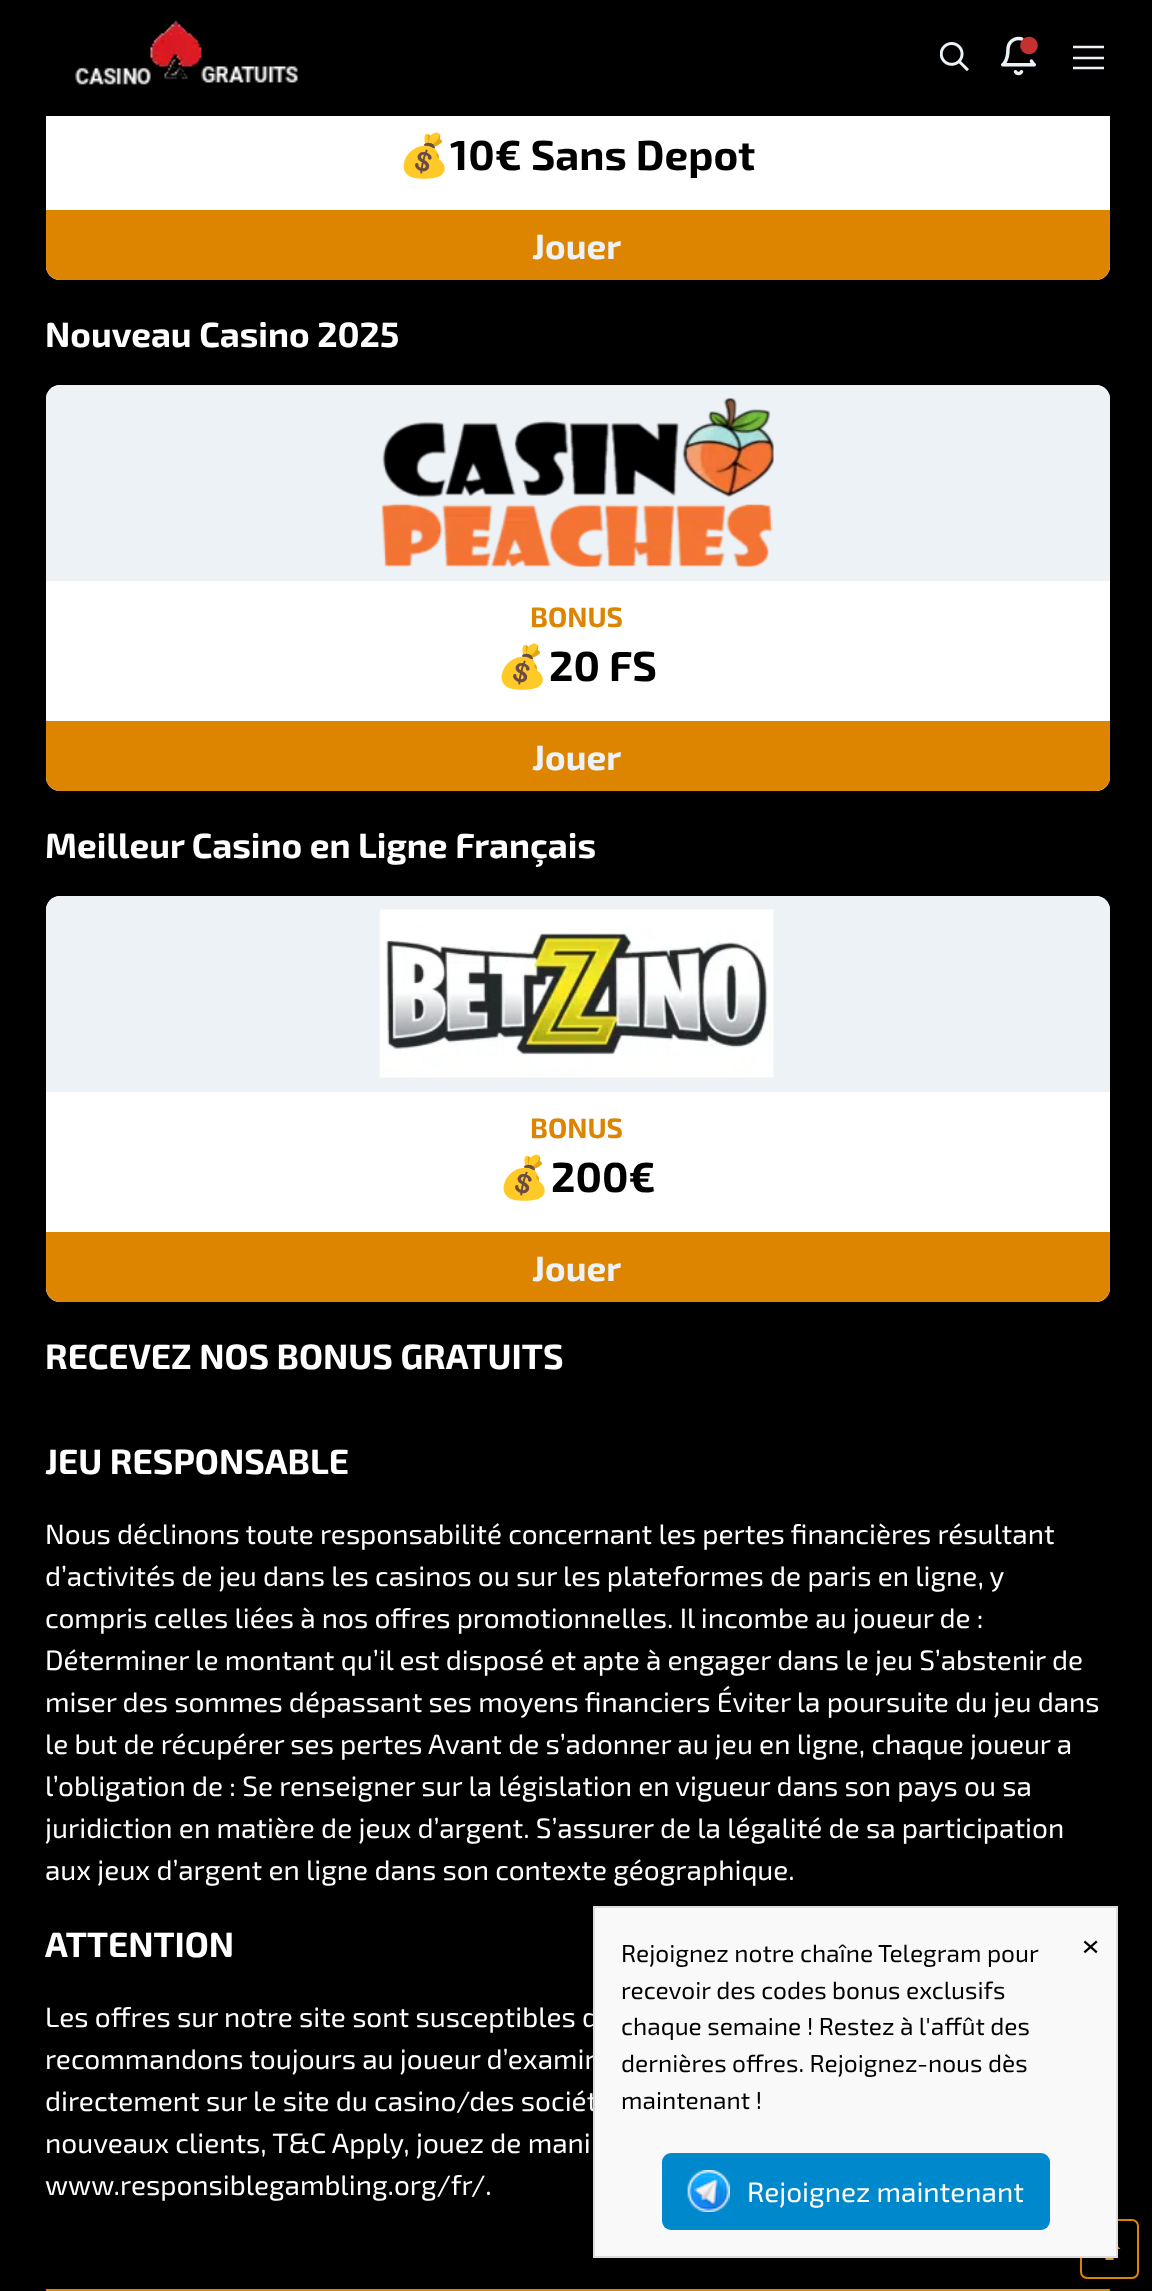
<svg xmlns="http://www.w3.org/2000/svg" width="1152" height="2291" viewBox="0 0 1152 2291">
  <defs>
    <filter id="blur1" x="-50%" y="-200%" width="200%" height="500%"><feGaussianBlur stdDeviation="9"/></filter>
  </defs>
  <rect width="100%" height="100%" fill="#000000"/>
  <rect x="46" y="-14" width="1064" height="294" rx="14" fill="#ffffff"/>
  <rect x="46" y="0" width="1064" height="116" fill="#000000"/>
  <image x="74" y="20" width="224" height="65" href="img1.png"/>
  <image x="940" y="42" width="29" height="30" href="img2.png"/>
  <image x="1001" y="36" width="37" height="40" href="img3.png"/>
  <path d="M1073 47H1104M1073 58H1104M1073 68H1104" fill="none" stroke="#edf2f7" stroke-width="2.6"/>
  <text x="398" y="170" font-family="Noto Color Emoji" font-size="42" font-weight="bold" fill="#000000">💰</text>
  <text x="450" y="170" font-family="'Exo 2'" font-size="42" font-weight="bold" fill="#000000">10€ Sans Depot</text>
  <path d="M48 212H1108V266C1108 272.5 1102.5 278 1096 278H60C53.5 278 48 272.5 48 266Z" fill="#dd8500" stroke="#dd8500" stroke-width="4"/>
  <text x="532" y="259" font-family="'Exo 2'" font-size="35" font-weight="bold" fill="#edf2f7">Jouer</text>
  <text x="45" y="347" font-family="'Exo 2'" font-size="35" font-weight="bold" fill="#ffffff">Nouveau Casino 2025</text>
  <rect x="46" y="385" width="1064" height="406" rx="14" fill="#ffffff"/>
  <path d="M60 385H1096C1103.5 385 1110 391.5 1110 399V581H46V399C46 391.5 52.5 385 60 385Z" fill="#edf2f7"/>
  <image x="381" y="398" width="393" height="169" href="img4.png"/>
  <text x="530" y="627" font-family="'Exo 2'" font-size="28" font-weight="bold" fill="#dd8500">BONUS</text>
  <text x="496" y="681" font-family="Noto Color Emoji" font-size="42" font-weight="bold" fill="#000000">💰</text>
  <text x="549" y="681" font-family="'Exo 2'" font-size="42" font-weight="bold" fill="#000000">20 FS</text>
  <path d="M48 723H1108V777C1108 783.5 1102.5 789 1096 789H60C53.5 789 48 783.5 48 777Z" fill="#dd8500" stroke="#dd8500" stroke-width="4"/>
  <text x="532" y="770" font-family="'Exo 2'" font-size="35" font-weight="bold" fill="#edf2f7">Jouer</text>
  <text x="45" y="858" font-family="'Exo 2'" font-size="35" font-weight="bold" fill="#ffffff">Meilleur Casino en Ligne Français</text>
  <rect x="46" y="896" width="1064" height="406" rx="14" fill="#ffffff"/>
  <path d="M60 896H1096C1103.5 896 1110 902.5 1110 910V1092H46V910C46 902.5 52.5 896 60 896Z" fill="#edf2f7"/>
  <image x="379" y="909" width="395" height="169" href="img5.png"/>
  <text x="530" y="1138" font-family="'Exo 2'" font-size="28" font-weight="bold" fill="#dd8500">BONUS</text>
  <text x="498" y="1192" font-family="Noto Color Emoji" font-size="42" font-weight="bold" fill="#000000">💰</text>
  <text x="551" y="1192" font-family="'Exo 2'" font-size="42" font-weight="bold" fill="#000000">200€</text>
  <path d="M48 1234H1108V1288C1108 1294.5 1102.5 1300 1096 1300H60C53.5 1300 48 1294.5 48 1288Z" fill="#dd8500" stroke="#dd8500" stroke-width="4"/>
  <text x="532" y="1281" font-family="'Exo 2'" font-size="35" font-weight="bold" fill="#edf2f7">Jouer</text>
  <text x="45" y="1369" font-family="'Exo 2'" font-size="35" font-weight="bold" fill="#ffffff">RECEVEZ NOS BONUS GRATUITS</text>
  <text x="45" y="1474" font-family="'Exo 2'" font-size="35" font-weight="bold" fill="#ffffff">JEU RESPONSABLE</text>
  <text x="45" y="1544" font-family="'Exo 2'" font-size="28" fill="#ffffff">Nous déclinons toute responsabilité concernant les pertes financières résultant</text>
  <text x="45" y="1586" font-family="'Exo 2'" font-size="28" fill="#ffffff">d’activités de jeu dans les casinos ou sur les plateformes de paris en ligne, y</text>
  <text x="45" y="1628" font-family="'Exo 2'" font-size="28" fill="#ffffff">compris celles liées à nos offres promotionnelles. Il incombe au joueur de :</text>
  <text x="45" y="1670" font-family="'Exo 2'" font-size="28" fill="#ffffff">Déterminer le montant qu’il est disposé et apte à engager dans le jeu S’abstenir de</text>
  <text x="45" y="1712" font-family="'Exo 2'" font-size="28" fill="#ffffff">miser des sommes dépassant ses moyens financiers Éviter la poursuite du jeu dans</text>
  <text x="45" y="1754" font-family="'Exo 2'" font-size="28" fill="#ffffff">le but de récupérer ses pertes Avant de s’adonner au jeu en ligne, chaque joueur a</text>
  <text x="45" y="1796" font-family="'Exo 2'" font-size="28" fill="#ffffff">l’obligation de : Se renseigner sur la législation en vigueur dans son pays ou sa</text>
  <text x="45" y="1838" font-family="'Exo 2'" font-size="28" fill="#ffffff">juridiction en matière de jeux d’argent. S’assurer de la légalité de sa participation</text>
  <text x="45" y="1880" font-family="'Exo 2'" font-size="28" fill="#ffffff">aux jeux d’argent en ligne dans son contexte géographique.</text>
  <text x="45" y="1957" font-family="'Exo 2'" font-size="35" font-weight="bold" fill="#ffffff">ATTENTION</text>
  <text x="45" y="2027" font-family="'Exo 2'" font-size="28" fill="#ffffff">Les offres sur notre site sont susceptibles d</text>
  <text x="45" y="2069" font-family="'Exo 2'" font-size="28" fill="#ffffff">recommandons toujours au joueur d’examin</text>
  <text x="45" y="2111" font-family="'Exo 2'" font-size="28" fill="#ffffff">directement sur le site du casino/des sociét</text>
  <text x="45" y="2153" font-family="'Exo 2'" font-size="28" fill="#ffffff">nouveaux clients, T&amp;C Apply, jouez de mani</text>
  <text x="45" y="2195" font-family="'Exo 2'" font-size="28" fill="#ffffff">www.responsiblegambling.org/fr/.</text>
  <rect x="46" y="2289" width="1064" height="2" fill="#dd8500"/>
  <rect x="1081" y="2220" width="57" height="58" rx="6" fill="none" stroke="#dd8500" stroke-width="2"/>
  <path d="M1105.5 2249V2260H1113.5V2249H1120.5L1109.5 2237.5L1098.5 2249Z" fill="#dd9933"/>
  <rect x="593" y="1906" width="525" height="352" fill="#000000" fill-opacity="0.1" filter="url(#blur1)"/>
  <rect x="594" y="1907" width="523" height="350" fill="#f9f9f9" stroke="#dddddd" stroke-width="2"/>
  <text x="621" y="1962" font-family="'Exo 2'" font-size="24.5" fill="#000000">Rejoignez notre chaîne Telegram pour</text>
  <text x="621" y="1999" font-family="'Exo 2'" font-size="24.5" fill="#000000">recevoir des codes bonus exclusifs</text>
  <text x="621" y="2035" font-family="'Exo 2'" font-size="24.5" fill="#000000">chaque semaine ! Restez à l'affût des</text>
  <text x="621" y="2072" font-family="'Exo 2'" font-size="24.5" fill="#000000">dernières offres. Rejoignez-nous dès</text>
  <text x="621" y="2109" font-family="'Exo 2'" font-size="24.5" fill="#000000">maintenant !</text>
  <text x="1082" y="1957" font-family="'Exo 2'" font-size="35" fill="#000000">×</text>
  <rect x="662" y="2153" width="388" height="77" rx="9" fill="#0088cc"/>
  <image x="687" y="2170" width="43" height="42" href="img6.png"/>
  <text x="747" y="2202" font-family="'Exo 2'" font-size="28" fill="#ffffff">Rejoignez maintenant</text>
</svg>
